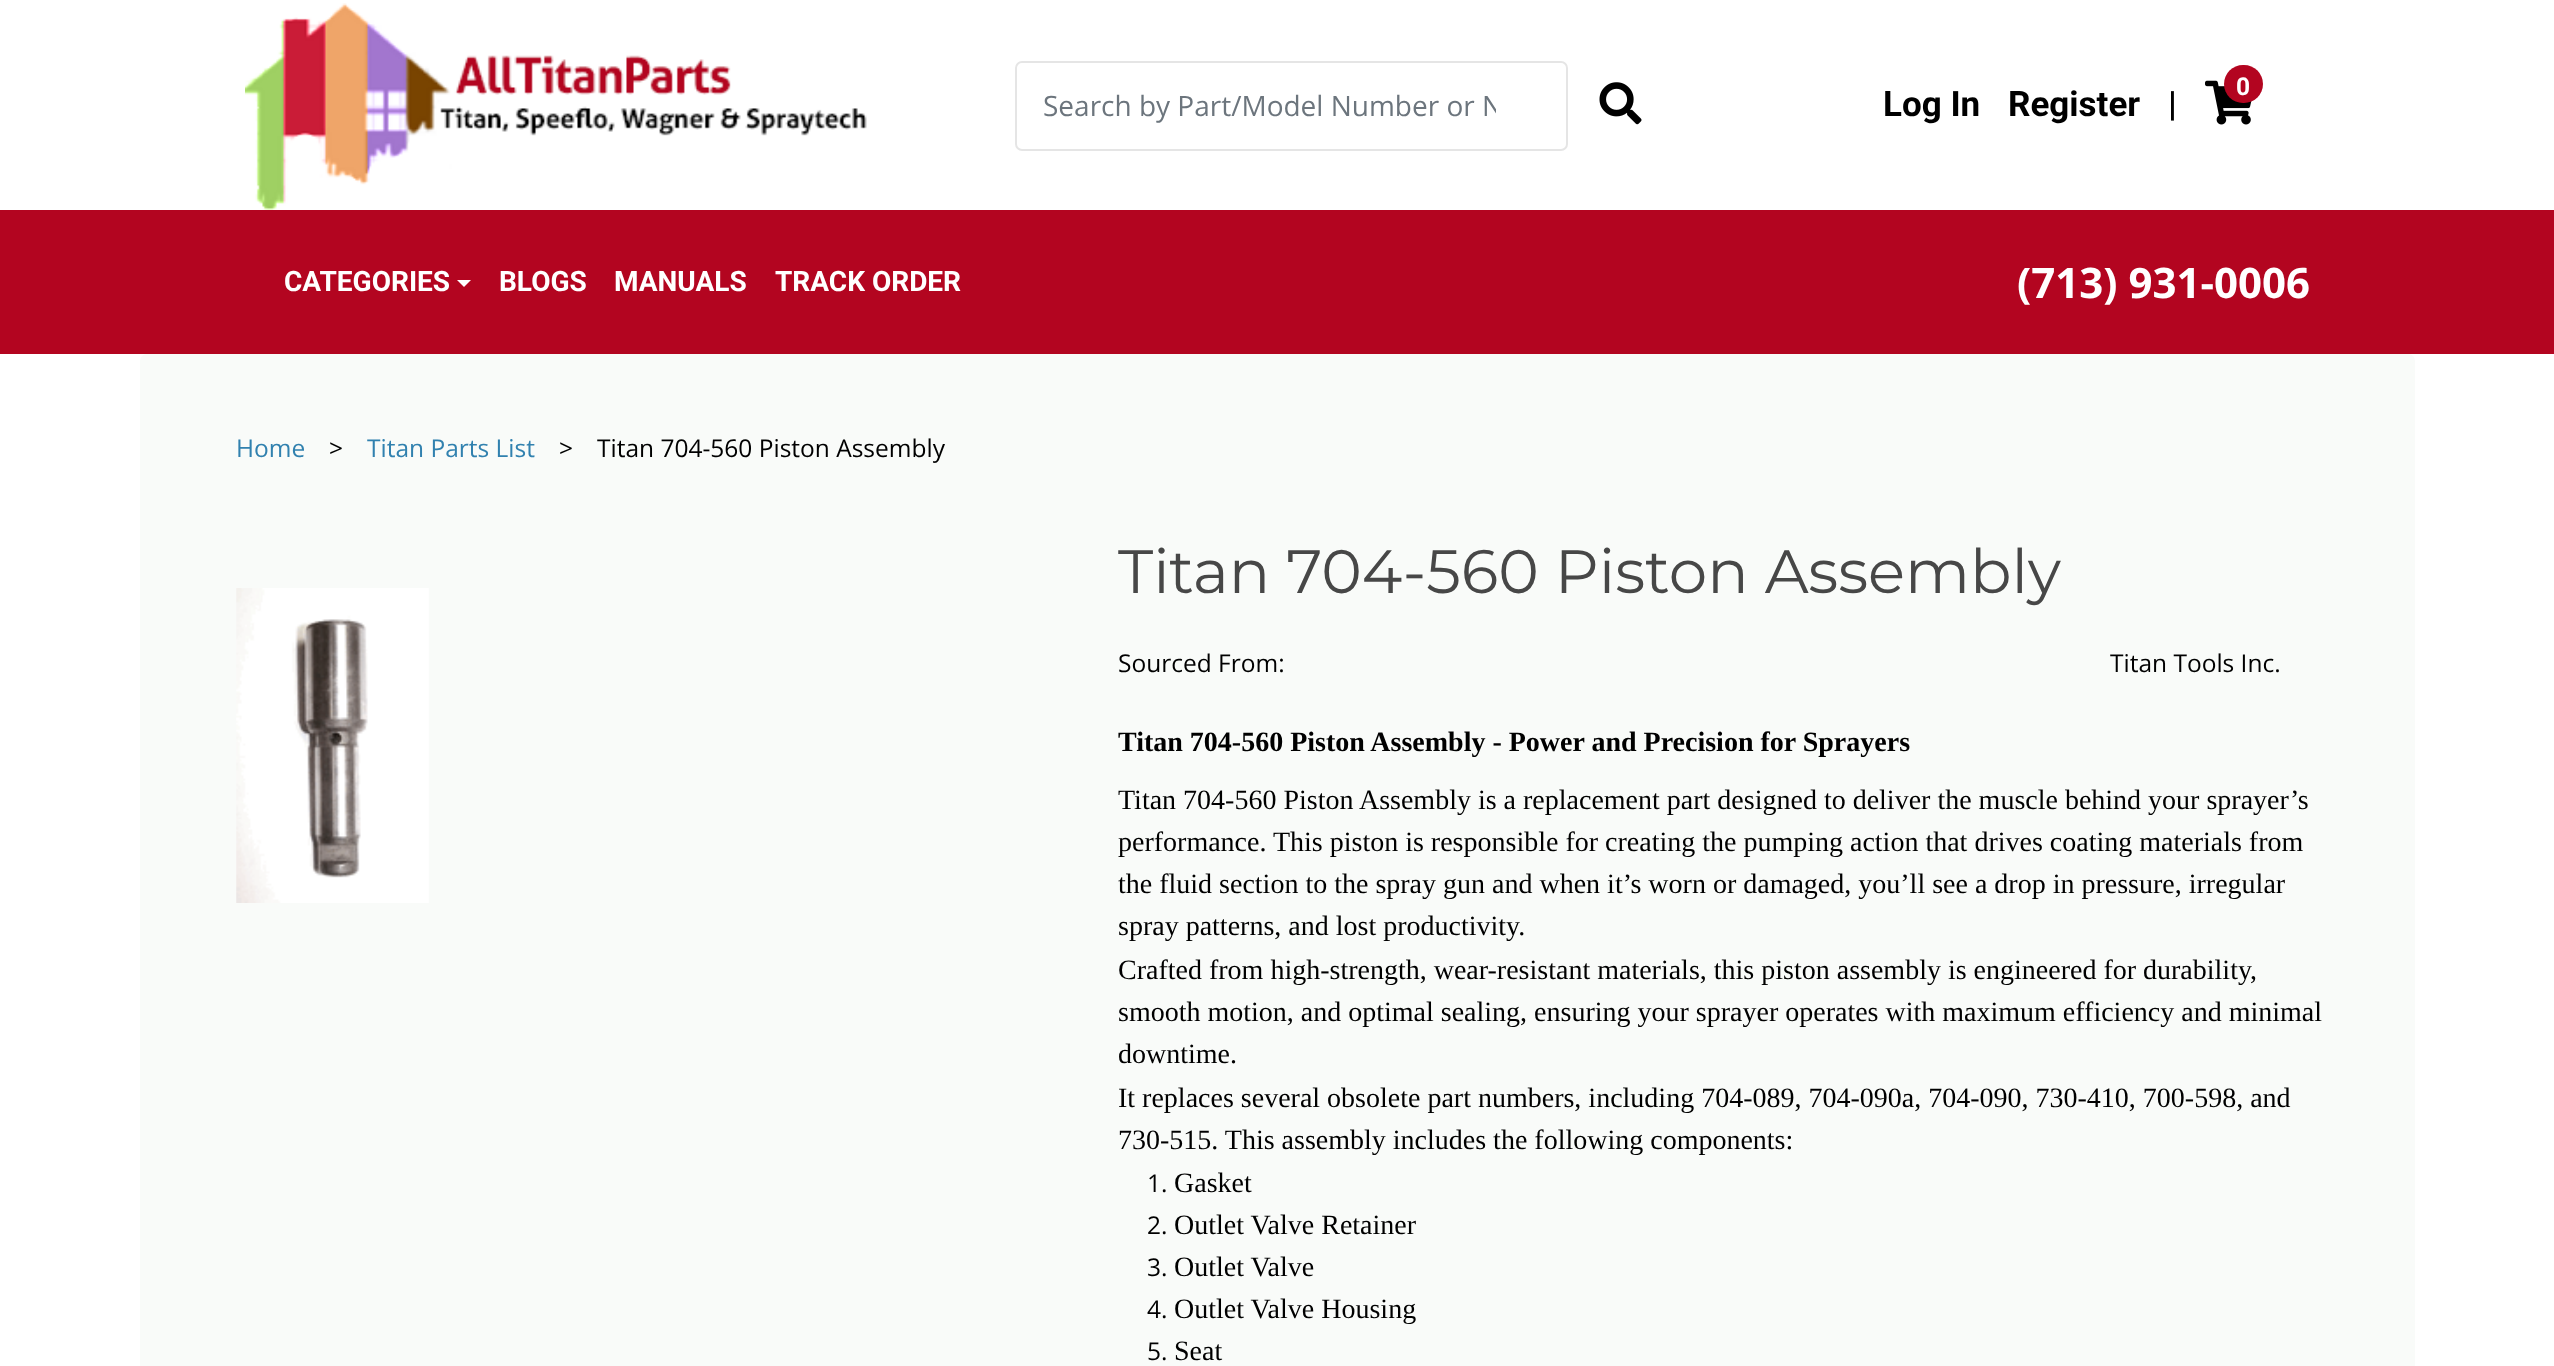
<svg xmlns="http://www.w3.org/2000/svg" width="2554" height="1366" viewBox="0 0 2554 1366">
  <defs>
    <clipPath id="clip1"><rect x="1043" y="86" width="453" height="38"/></clipPath>
  </defs>
  <rect width="100%" height="100%" fill="#ffffff"/>
  <image x="245" y="3" width="622" height="207" href="img1.png"/>
  <rect x="1016" y="62" width="551" height="88" rx="6" fill="none" stroke="#e5e5e5" stroke-width="2"/>
  <g clip-path="url(#clip1)">
    <text x="1043" y="116" font-family="Open Sans" font-size="28" fill="#6c757d">Search by Part/Model Number or N</text>
  </g>
  <image x="1599" y="82" width="43" height="43" href="img2.png"/>
  <image x="2205" y="80" width="47" height="45" href="img3.png"/>
  <rect x="2224" y="65" width="39" height="38" rx="19" fill="#b30520"/>
  <text x="2236" y="95" font-family="Roboto" font-size="24.5" font-weight="bold" fill="#ffffff">0</text>
  <text x="1883" y="116" font-family="Roboto" font-size="35" font-weight="bold" fill="#000000">Log In</text>
  <text x="2008" y="116" font-family="Roboto" font-size="35" font-weight="bold" fill="#000000">Register</text>
  <text x="2168" y="116" font-family="Roboto" font-size="35" font-weight="bold" fill="#000000">|</text>
  <rect x="0" y="210" width="2554" height="144" fill="#b30520"/>
  <text x="284" y="291" font-family="Roboto" font-size="28" font-weight="bold" fill="#ffffff">CATEGORIES</text>
  <path d="M457 280H471L464 287Z" fill="#ffffff"/>
  <text x="499" y="291" font-family="Roboto" font-size="28" font-weight="bold" fill="#ffffff">BLOGS</text>
  <text x="614" y="291" font-family="Roboto" font-size="28" font-weight="bold" fill="#ffffff">MANUALS</text>
  <text x="775" y="291" font-family="Roboto" font-size="28" font-weight="bold" fill="#ffffff">TRACK ORDER</text>
  <text x="2017" y="298" font-family="Open Sans" font-size="42" font-weight="bold" fill="#ffffff">(713) 931-0006</text>
  <rect x="140" y="354" width="2275" height="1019" rx="7" fill="#f9fbf9"/>
  <text x="236" y="457" font-family="Open Sans" font-size="24.5" fill="#3181af">Home</text>
  <text x="329" y="457" font-family="Open Sans" font-size="24.5" fill="#000000">&gt;</text>
  <text x="367" y="457" font-family="Open Sans" font-size="24.5" fill="#3181af">Titan Parts List</text>
  <text x="559" y="457" font-family="Open Sans" font-size="24.5" fill="#000000">&gt;</text>
  <text x="597" y="457" font-family="Open Sans" font-size="24.5" fill="#000000">Titan 704-560 Piston Assembly</text>
  <image x="236" y="588" width="193" height="315" href="img4.png"/>
  <text x="1118" y="593" font-family="Montserrat" font-size="61.25" fill="#474747">Titan 704-560 Piston Assembly</text>
  <text x="1118" y="672" font-family="Open Sans" font-size="24.5" fill="#000000">Sourced From:</text>
  <text x="2110" y="672" font-family="Open Sans" font-size="24.5" fill="#000000">Titan Tools Inc.</text>
  <text x="1118" y="751" font-family="Liberation Serif" font-size="28" font-weight="bold" fill="#000000">Titan 704-560 Piston Assembly - Power and Precision for Sprayers</text>
  <text x="1118" y="809" font-family="Liberation Serif" font-size="28" fill="#000000">Titan 704-560 Piston Assembly is a replacement part designed to deliver the muscle behind your sprayer’s</text>
  <text x="1118" y="851" font-family="Liberation Serif" font-size="28" fill="#000000">performance. This piston is responsible for creating the pumping action that drives coating materials from</text>
  <text x="1118" y="893" font-family="Liberation Serif" font-size="28" fill="#000000">the fluid section to the spray gun and when it’s worn or damaged, you’ll see a drop in pressure, irregular</text>
  <text x="1118" y="935" font-family="Liberation Serif" font-size="28" fill="#000000">spray patterns, and lost productivity.</text>
  <text x="1118" y="979" font-family="Liberation Serif" font-size="28" fill="#000000">Crafted from high-strength, wear-resistant materials, this piston assembly is engineered for durability,</text>
  <text x="1118" y="1021" font-family="Liberation Serif" font-size="28" fill="#000000">smooth motion, and optimal sealing, ensuring your sprayer operates with maximum efficiency and minimal</text>
  <text x="1118" y="1063" font-family="Liberation Serif" font-size="28" fill="#000000">downtime.</text>
  <text x="1118" y="1107" font-family="Liberation Serif" font-size="28" fill="#000000">It replaces several obsolete part numbers, including 704-089, 704-090a, 704-090, 730-410, 700-598, and</text>
  <text x="1118" y="1149" font-family="Liberation Serif" font-size="28" fill="#000000">730-515. This assembly includes the following components:</text>
  <text x="1147" y="1192" font-family="Open Sans" font-size="24.5" fill="#000000">1.</text>
  <text x="1174" y="1192" font-family="Liberation Serif" font-size="28" fill="#000000">Gasket</text>
  <text x="1147" y="1234" font-family="Open Sans" font-size="24.5" fill="#000000">2.</text>
  <text x="1174" y="1234" font-family="Liberation Serif" font-size="28" fill="#000000">Outlet Valve Retainer</text>
  <text x="1147" y="1276" font-family="Open Sans" font-size="24.5" fill="#000000">3.</text>
  <text x="1174" y="1276" font-family="Liberation Serif" font-size="28" fill="#000000">Outlet Valve</text>
  <text x="1147" y="1318" font-family="Open Sans" font-size="24.5" fill="#000000">4.</text>
  <text x="1174" y="1318" font-family="Liberation Serif" font-size="28" fill="#000000">Outlet Valve Housing</text>
  <text x="1147" y="1360" font-family="Open Sans" font-size="24.5" fill="#000000">5.</text>
  <text x="1174" y="1360" font-family="Liberation Serif" font-size="28" fill="#000000">Seat</text>
</svg>
